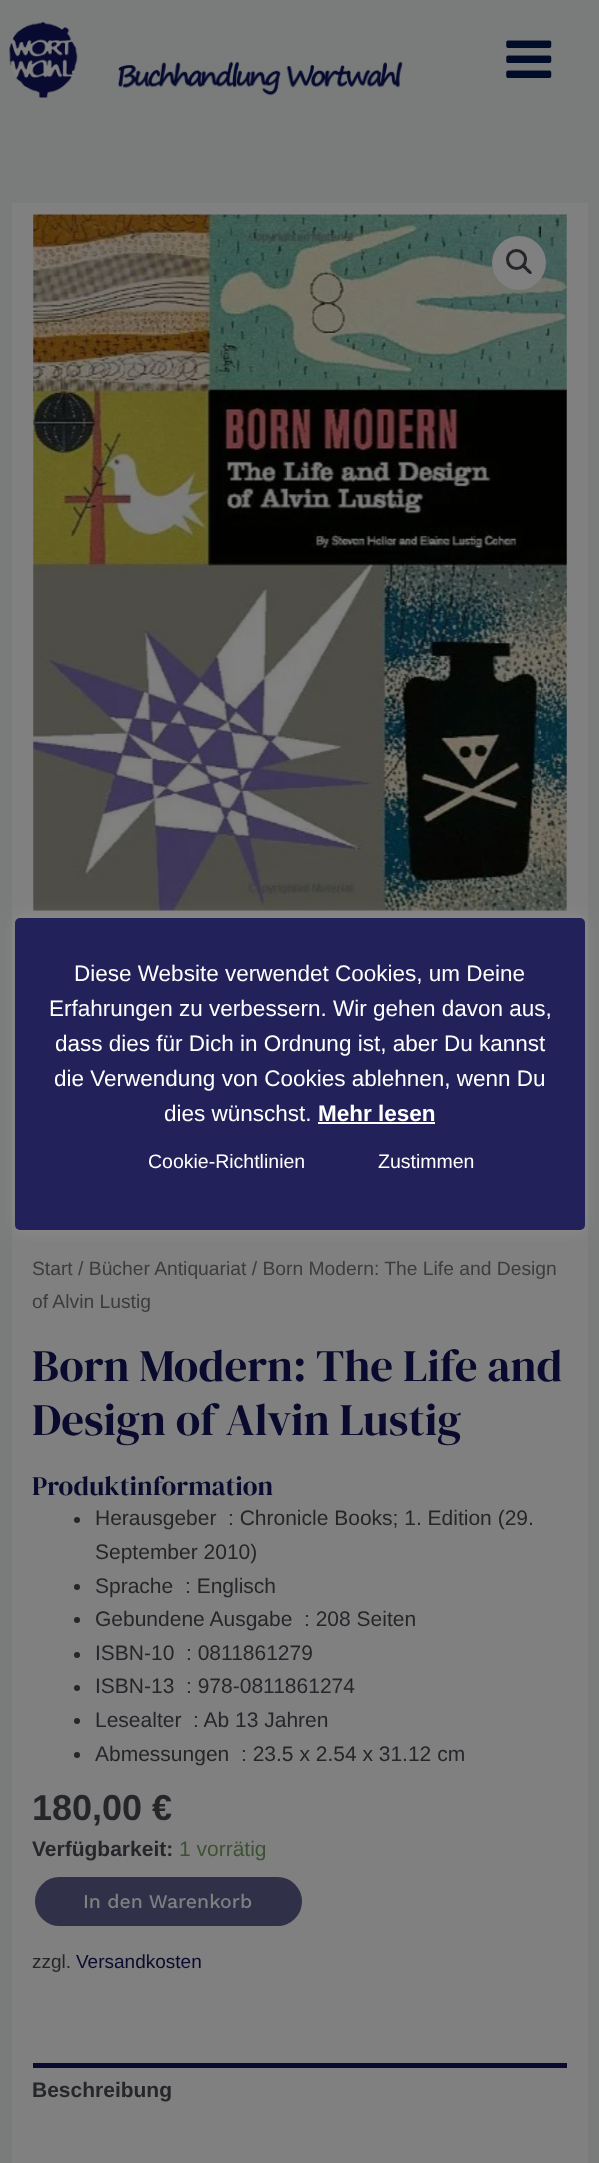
<svg xmlns="http://www.w3.org/2000/svg" width="599" height="2163" viewBox="0 0 599 2163">
  <defs>
    <filter id="blur1" x="-50%" y="-200%" width="200%" height="500%"><feGaussianBlur stdDeviation="7.5"/></filter>
  </defs>
  <rect width="100%" height="100%" fill="#7a7b7b"/>
  <rect x="12" y="203" width="576" height="1960" fill="#808080"/>
  <image x="33" y="214" width="534" height="697" href="img4.png"/>
  <rect x="15" y="917" width="570" height="312" rx="5" fill="#acabab" fill-opacity="0.3" filter="url(#blur1)"/>
  <rect x="15" y="918" width="570" height="312" rx="5" fill="#22215a"/>
  <text x="74" y="981" font-family="Liberation Sans" font-size="22.5" fill="#ffffff">Diese Website verwendet Cookies, um Deine</text>
  <text x="49" y="1016" font-family="Liberation Sans" font-size="22.5" fill="#ffffff">Erfahrungen zu verbessern. Wir gehen davon aus,</text>
  <text x="55" y="1051" font-family="Liberation Sans" font-size="22.5" fill="#ffffff">dass dies für Dich in Ordnung ist, aber Du kannst</text>
  <text x="54" y="1086" font-family="Liberation Sans" font-size="22.5" fill="#ffffff">die Verwendung von Cookies ablehnen, wenn Du</text>
  <text x="164" y="1121" font-family="Liberation Sans" font-size="22.5" fill="#ffffff">dies wünschst.</text>
  <text x="318" y="1121" font-family="Liberation Sans" font-size="22.5" font-weight="bold" fill="#ffffff">Mehr lesen</text>
  <rect x="318" y="1122" width="117" height="2" fill="#ffffff"/>
  <text x="148" y="1168" font-family="Liberation Sans" font-size="19.5" fill="#ffffff">Cookie-Richtlinien</text>
  <text x="378" y="1168" font-family="Liberation Sans" font-size="19.5" fill="#ffffff">Zustimmen</text>
  <image x="9" y="21" width="69" height="77" href="img1.png"/>
  <image x="118" y="62" width="285" height="34" href="img2.png"/>
  <image x="506" y="40" width="46" height="38" href="img3.png"/>
  <circle cx="519" cy="263" r="27" fill="#808080"/>
  <circle cx="516.5" cy="259.5" r="9" fill="none" stroke="#252629" stroke-width="3"/>
  <path d="M523 265C524.5 263.5 527.5 267.5 528 268.5C529 269 533 272 531.5 273.5C529.5 275.5 527 271.5 526 270.5C525 269.5 521 267 523 265Z" fill="#252629"/>
  <text x="32" y="1275" font-family="Liberation Sans" font-size="19.3" fill="#3c3c3c">Start / Bücher Antiquariat / Born Modern: The Life and Design</text>
  <text x="32" y="1308" font-family="Liberation Sans" font-size="19.3" fill="#3c3c3c">of Alvin Lustig</text>
  <text x="32" y="1381" font-family="DM Serif Display" font-size="45" fill="#0a0a2e">Born Modern: The Life and</text>
  <text x="32" y="1435" font-family="DM Serif Display" font-size="45" fill="#0a0a2e">Design of Alvin Lustig</text>
  <text x="32" y="1495" font-family="DM Serif Display" font-size="27" fill="#0a0a2e">Produktinformation</text>
  <circle cx="77" cy="1520" r="3" fill="#252629"/>
  <text x="95" y="1525" font-family="Liberation Sans" font-size="21" fill="#252629">Herausgeber</text>
  <text x="228" y="1525" font-family="Liberation Sans" font-size="21" fill="#252629">:  Chronicle Books; 1. Edition (29.</text>
  <text x="95" y="1559" font-family="Liberation Sans" font-size="21" fill="#252629">September 2010)</text>
  <circle cx="77" cy="1587" r="3" fill="#252629"/>
  <text x="95" y="1593" font-family="Liberation Sans" font-size="21" fill="#252629">Sprache</text>
  <text x="185" y="1593" font-family="Liberation Sans" font-size="21" fill="#252629">:  Englisch</text>
  <circle cx="77" cy="1620" r="3" fill="#252629"/>
  <text x="95" y="1626" font-family="Liberation Sans" font-size="21" fill="#252629">Gebundene Ausgabe</text>
  <text x="304" y="1626" font-family="Liberation Sans" font-size="21" fill="#252629">:  208 Seiten</text>
  <circle cx="77" cy="1655" r="3" fill="#252629"/>
  <text x="95" y="1660" font-family="Liberation Sans" font-size="21" fill="#252629">ISBN-10</text>
  <text x="186" y="1660" font-family="Liberation Sans" font-size="21" fill="#252629">:  0811861279</text>
  <circle cx="77" cy="1688" r="3" fill="#252629"/>
  <text x="95" y="1693" font-family="Liberation Sans" font-size="21" fill="#252629">ISBN-13</text>
  <text x="186" y="1693" font-family="Liberation Sans" font-size="21" fill="#252629">:  978-0811861274</text>
  <circle cx="77" cy="1721" r="3" fill="#252629"/>
  <text x="95" y="1727" font-family="Liberation Sans" font-size="21" fill="#252629">Lesealter</text>
  <text x="193" y="1727" font-family="Liberation Sans" font-size="21" fill="#252629">:  Ab 13 Jahren</text>
  <circle cx="77" cy="1755" r="3" fill="#252629"/>
  <text x="95" y="1761" font-family="Liberation Sans" font-size="21" fill="#252629">Abmessungen</text>
  <text x="241" y="1761" font-family="Liberation Sans" font-size="21" fill="#252629">:  23.5 x 2.54 x 31.12 cm</text>
  <text x="32" y="1820" font-family="Liberation Sans" font-size="36" font-weight="bold" fill="#252629">180,00 €</text>
  <text x="32" y="1856" font-family="Liberation Sans" font-size="21" font-weight="bold" fill="#252629">Verfügbarkeit:</text>
  <text x="179" y="1856" font-family="Liberation Sans" font-size="21" fill="#3c5232">1 vorrätig</text>
  <rect x="35" y="1877" width="267" height="49" rx="24.5" fill="#303048"/>
  <text x="83" y="1908" font-family="Work Sans" font-size="19.5" font-weight="500" fill="#808080">In den Warenkorb</text>
  <text x="32" y="1968" font-family="Liberation Sans" font-size="19" fill="#252629">zzgl.</text>
  <text x="76" y="1968" font-family="Liberation Sans" font-size="19" fill="#0a0a2e">Versandkosten</text>
  <rect x="33" y="2063" width="534" height="5" fill="#0a0a2e"/>
  <text x="32" y="2097" font-family="Liberation Sans" font-size="21" font-weight="bold" fill="#252629">Beschreibung</text>
</svg>
